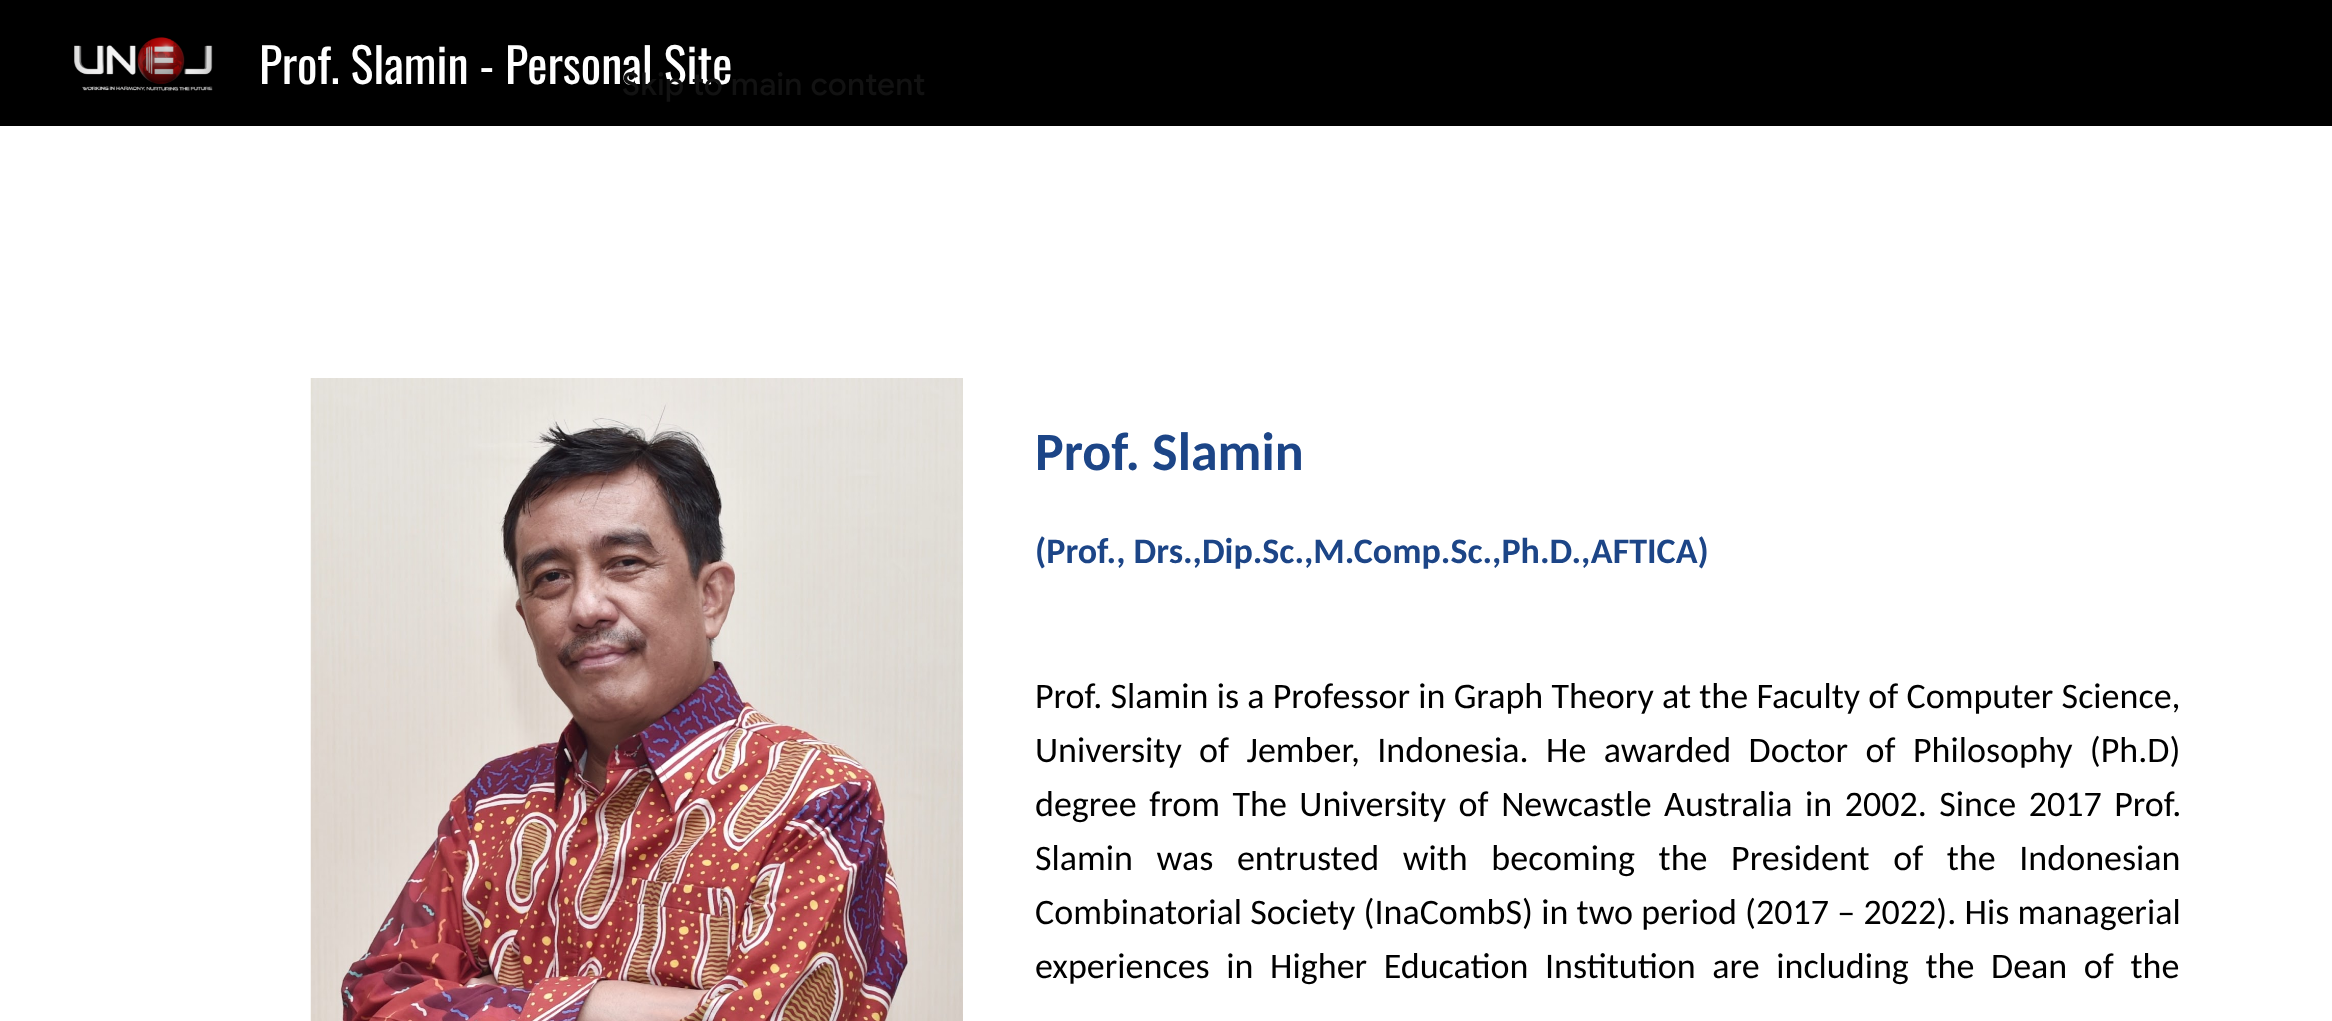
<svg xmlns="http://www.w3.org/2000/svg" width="2332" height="1021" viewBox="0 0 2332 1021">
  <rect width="100%" height="100%" fill="#ffffff"/>
  <rect x="0" y="0" width="2332" height="126" fill="#000000"/>
  <image x="74" y="37" width="139" height="54" href="img1.png"/>
  <text x="259" y="84" font-family="Oswald" font-size="48" fill="#ffffff">Prof. Slamin - Personal Site</text>
  <image x="310" y="378" width="653" height="643" href="img2.png"/>
  <text x="1035" y="470" font-family="Carlito" font-size="54" font-weight="bold" fill="#1c4587">Prof. Slamin</text>
  <text x="1035" y="563" font-family="Carlito" font-size="36" font-weight="bold" fill="#1c4587">(Prof., Drs.,Dip.Sc.,M.Comp.Sc.,Ph.D.,AFTICA)</text>
  <text x="1035" y="708" word-spacing="0.1" font-family="Carlito" font-size="36" fill="#000000">Prof. Slamin is a Professor in Graph Theory at the Faculty of Computer Science,</text>
  <text x="1035" y="762" word-spacing="9.25" font-family="Carlito" font-size="36" fill="#000000">University of Jember, Indonesia. He awarded Doctor of Philosophy (Ph.D)</text>
  <text x="1035" y="816" word-spacing="4.4" font-family="Carlito" font-size="36" fill="#000000">degree from The University of Newcastle Australia in 2002. Since 2017 Prof.</text>
  <text x="1035" y="870" word-spacing="15.5" font-family="Carlito" font-size="36" fill="#000000">Slamin was entrusted with becoming the President of the Indonesian</text>
  <text x="1035" y="924" word-spacing="0.1" font-family="Carlito" font-size="36" fill="#000000">Combinatorial Society (InaCombS) in two period (2017 – 2022). His managerial</text>
  <text x="1035" y="978" word-spacing="8.5" font-family="Carlito" font-size="36" fill="#000000">experiences in Higher Education Institution are including the Dean of the</text>
  <text x="622" y="95" font-family="Google Sans" font-size="31.5" font-weight="500" letter-spacing="0.3" fill="#121212">Skip to main content</text>
</svg>
